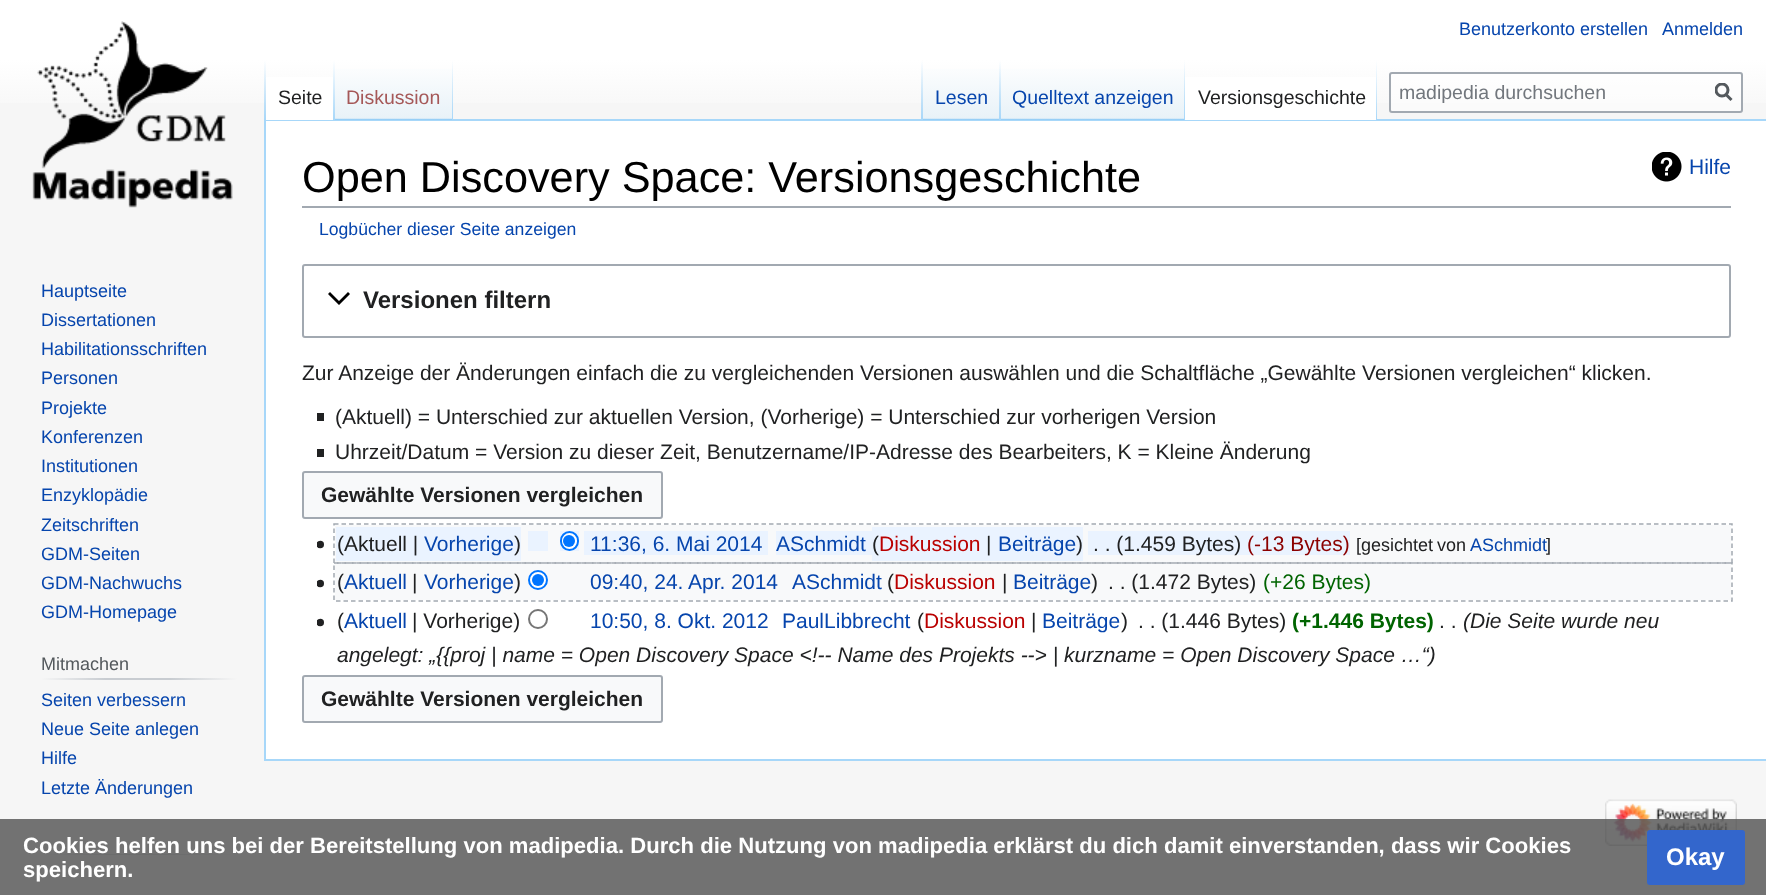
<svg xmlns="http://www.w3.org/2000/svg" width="1766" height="895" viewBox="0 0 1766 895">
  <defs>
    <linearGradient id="g1" gradientUnits="userSpaceOnUse" x1="884" y1="0" x2="884" y2="120"><stop offset="0.5" stop-color="#ffffff"/><stop offset="1" stop-color="#f6f6f6"/></linearGradient>
    <linearGradient id="g2" gradientUnits="userSpaceOnUse" x1="265" y1="60" x2="265" y2="120"><stop offset="0" stop-color="#a7d7f9" stop-opacity="0"/><stop offset="1" stop-color="#a7d7f9"/></linearGradient>
    <linearGradient id="g3" gradientUnits="userSpaceOnUse" x1="334" y1="60" x2="334" y2="120"><stop offset="0" stop-color="#ffffff"/><stop offset="1" stop-color="#a7d7f9"/></linearGradient>
    <linearGradient id="g4" gradientUnits="userSpaceOnUse" x1="394" y1="120" x2="394" y2="60"><stop offset="0" stop-color="#77c1f6"/><stop offset="0.03" stop-color="#e8f2f8"/><stop offset="1" stop-color="#ffffff"/></linearGradient>
    <linearGradient id="g5" gradientUnits="userSpaceOnUse" x1="452" y1="60" x2="452" y2="120"><stop offset="0" stop-color="#a7d7f9" stop-opacity="0"/><stop offset="1" stop-color="#a7d7f9"/></linearGradient>
    <linearGradient id="g6" gradientUnits="userSpaceOnUse" x1="922" y1="60" x2="922" y2="120"><stop offset="0" stop-color="#a7d7f9" stop-opacity="0"/><stop offset="1" stop-color="#a7d7f9"/></linearGradient>
    <linearGradient id="g7" gradientUnits="userSpaceOnUse" x1="962" y1="120" x2="962" y2="60"><stop offset="0" stop-color="#77c1f6"/><stop offset="0.03" stop-color="#e8f2f8"/><stop offset="1" stop-color="#ffffff"/></linearGradient>
    <linearGradient id="g8" gradientUnits="userSpaceOnUse" x1="1000" y1="60" x2="1000" y2="120"><stop offset="0" stop-color="#a7d7f9" stop-opacity="0"/><stop offset="1" stop-color="#a7d7f9"/></linearGradient>
    <linearGradient id="g9" gradientUnits="userSpaceOnUse" x1="1093" y1="120" x2="1093" y2="60"><stop offset="0" stop-color="#77c1f6"/><stop offset="0.03" stop-color="#e8f2f8"/><stop offset="1" stop-color="#ffffff"/></linearGradient>
    <linearGradient id="g10" gradientUnits="userSpaceOnUse" x1="1184" y1="60" x2="1184" y2="120"><stop offset="0" stop-color="#a7d7f9" stop-opacity="0"/><stop offset="1" stop-color="#a7d7f9"/></linearGradient>
    <linearGradient id="g11" gradientUnits="userSpaceOnUse" x1="1376" y1="60" x2="1376" y2="120"><stop offset="0" stop-color="#ffffff"/><stop offset="1" stop-color="#a7d7f9"/></linearGradient>
    <clipPath id="clip1"><rect x="1715" y="83" width="18" height="19"/></clipPath>
    <linearGradient id="g12" gradientUnits="userSpaceOnUse" x1="41" y1="679" x2="237" y2="679"><stop offset="0" stop-color="#f6f6f6"/><stop offset="0.33" stop-color="#c8ccd1"/><stop offset="0.66" stop-color="#c8ccd1"/><stop offset="1" stop-color="#f6f6f6"/></linearGradient>
    <linearGradient id="g13" gradientUnits="userSpaceOnUse" x1="41" y1="854" x2="237" y2="854"><stop offset="0" stop-color="#f6f6f6"/><stop offset="0.33" stop-color="#c8ccd1"/><stop offset="0.66" stop-color="#c8ccd1"/><stop offset="1" stop-color="#f6f6f6"/></linearGradient>
  </defs>
  <rect width="100%" height="100%" fill="#f6f6f6"/>
  <rect x="0" y="0" width="1766" height="103" fill="url(#g1)"/>
  <text x="1459" y="35" font-family="Liberation Sans" font-size="18" fill="#0645ad">Benutzerkonto erstellen</text>
  <text x="1662" y="35" font-family="Liberation Sans" font-size="18" fill="#0645ad">Anmelden</text>
  <rect x="264" y="119" width="1502" height="2" fill="#a7d7f9"/>
  <rect x="264" y="759" width="1502" height="2" fill="#a7d7f9"/>
  <rect x="264" y="119" width="2" height="642" fill="#a7d7f9"/>
  <rect x="264" y="60" width="2" height="60" fill="url(#g2)"/>
  <rect x="266" y="77" width="67" height="43" fill="#ffffff"/>
  <rect x="333" y="60" width="2" height="60" fill="url(#g3)"/>
  <text x="278" y="104" font-family="Liberation Sans" font-size="19.5" fill="#202122">Seite</text>
  <rect x="335" y="69" width="118" height="51" fill="url(#g4)"/>
  <rect x="452" y="60" width="1" height="60" fill="url(#g5)"/>
  <text x="346" y="104" font-family="Liberation Sans" font-size="19.5" fill="#a55858">Diskussion</text>
  <rect x="921" y="60" width="2" height="60" fill="url(#g6)"/>
  <rect x="923" y="69" width="78" height="51" fill="url(#g7)"/>
  <rect x="999" y="60" width="2" height="60" fill="url(#g8)"/>
  <text x="935" y="104" font-family="Liberation Sans" font-size="19.5" fill="#0645ad">Lesen</text>
  <rect x="1001" y="69" width="184" height="51" fill="url(#g9)"/>
  <rect x="1184" y="60" width="1" height="60" fill="url(#g10)"/>
  <text x="1012" y="104" font-family="Liberation Sans" font-size="19.5" fill="#0645ad">Quelltext anzeigen</text>
  <rect x="1185" y="77" width="191" height="43" fill="#ffffff"/>
  <rect x="1376" y="60" width="1" height="60" fill="url(#g11)"/>
  <text x="1198" y="104" font-family="Liberation Sans" font-size="19.5" fill="#202122">Versionsgeschichte</text>
  <rect x="1390" y="73" width="352" height="39" rx="2" fill="#ffffff" fill-opacity="0.5" stroke="#a2a9b1" stroke-width="2"/>
  <text x="1399" y="99" font-family="Liberation Sans" font-size="19.5" fill="#72777d">madipedia durchsuchen</text>
  <path d="M1731.5 100L1725.5 94" fill="none" stroke="#54595d" stroke-width="3"/>
  <g clip-path="url(#clip1)">
    <circle cx="1722" cy="90" r="6" fill="none" stroke="#54595d" stroke-width="3"/>
  </g>
  <image x="32" y="21" width="201" height="187" href="img1.png"/>
  <text x="41" y="297" font-family="Liberation Sans" font-size="18" fill="#0645ad">Hauptseite</text>
  <text x="41" y="326" font-family="Liberation Sans" font-size="18" fill="#0645ad">Dissertationen</text>
  <text x="41" y="355" font-family="Liberation Sans" font-size="18" fill="#0645ad">Habilitationsschriften</text>
  <text x="41" y="384" font-family="Liberation Sans" font-size="18" fill="#0645ad">Personen</text>
  <text x="41" y="414" font-family="Liberation Sans" font-size="18" fill="#0645ad">Projekte</text>
  <text x="41" y="443" font-family="Liberation Sans" font-size="18" fill="#0645ad">Konferenzen</text>
  <text x="41" y="472" font-family="Liberation Sans" font-size="18" fill="#0645ad">Institutionen</text>
  <text x="41" y="501" font-family="Liberation Sans" font-size="18" fill="#0645ad">Enzyklopädie</text>
  <text x="41" y="531" font-family="Liberation Sans" font-size="18" fill="#0645ad">Zeitschriften</text>
  <text x="41" y="560" font-family="Liberation Sans" font-size="18" fill="#0645ad">GDM-Seiten</text>
  <text x="41" y="589" font-family="Liberation Sans" font-size="18" fill="#0645ad">GDM-Nachwuchs</text>
  <text x="41" y="618" font-family="Liberation Sans" font-size="18" fill="#0645ad">GDM-Homepage</text>
  <rect x="41" y="678" width="196" height="2" fill="url(#g12)"/>
  <text x="41" y="670" font-family="Liberation Sans" font-size="18" fill="#54595d">Mitmachen</text>
  <text x="41" y="706" font-family="Liberation Sans" font-size="18" fill="#0645ad">Seiten verbessern</text>
  <text x="41" y="735" font-family="Liberation Sans" font-size="18" fill="#0645ad">Neue Seite anlegen</text>
  <text x="41" y="764" font-family="Liberation Sans" font-size="18" fill="#0645ad">Hilfe</text>
  <text x="41" y="794" font-family="Liberation Sans" font-size="18" fill="#0645ad">Letzte Änderungen</text>
  <rect x="41" y="854" width="196" height="1" fill="url(#g13)"/>
  <rect x="266" y="121" width="1500" height="638" fill="#ffffff"/>
  <rect x="302" y="206" width="1429" height="2" fill="#a2a9b1"/>
  <text x="302" y="192" font-family="Liberation Sans" font-size="43.25" fill="#000000">Open Discovery Space: Versionsgeschichte</text>
  <image x="1652" y="152" width="30" height="30" href="img2.png"/>
  <text x="1689" y="174" font-family="Liberation Sans" font-size="21" fill="#0645ad">Hilfe</text>
  <text x="319" y="235" font-family="Liberation Sans" font-size="17.6" fill="#0645ad">Logbücher dieser Seite anzeigen</text>
  <rect x="303" y="265" width="1427" height="72" rx="2" fill="none" stroke="#a2a9b1" stroke-width="2"/>
  <path d="M348 292L339 301L330 292L328 294L339 305L350 294Z" fill="#000000"/>
  <text x="363" y="308" font-family="Liberation Sans" font-size="24" font-weight="bold" fill="#202122">Versionen filtern</text>
  <text x="302" y="380" font-family="Liberation Sans" font-size="21" fill="#202122">Zur Anzeige der Änderungen einfach die zu vergleichenden Versionen auswählen und die Schaltfläche „Gewählte Versionen vergleichen“ klicken.</text>
  <rect x="317" y="413" width="7" height="8" fill="#202122"/>
  <text x="335" y="424" font-family="Liberation Sans" font-size="21" fill="#202122">(Aktuell) = Unterschied zur aktuellen Version, (Vorherige) = Unterschied zur vorherigen Version</text>
  <rect x="317" y="449" width="7" height="8" fill="#202122"/>
  <text x="335" y="459" font-family="Liberation Sans" font-size="21" fill="#202122">Uhrzeit/Datum = Version zu dieser Zeit, Benutzername/IP-Adresse des Bearbeiters, K = Kleine Änderung</text>
  <rect x="303" y="472" width="359" height="46" rx="2" fill="#f8f9fa" stroke="#a2a9b1" stroke-width="2"/>
  <text x="321" y="502" font-family="Liberation Sans" font-size="21" font-weight="bold" fill="#202122">Gewählte Versionen vergleichen</text>
  <rect x="335" y="525" width="1396" height="38" fill="#f8f9fa"/>
  <image x="317" y="540" width="7" height="9" href="img3.png"/>
  <rect x="336" y="527" width="185" height="34" fill="#eaf3ff"/>
  <rect x="528" y="531" width="20" height="20" fill="#eaf3ff"/>
  <rect x="560" y="531" width="19" height="20" fill="#eaf3ff"/>
  <rect x="584" y="531" width="184" height="24" fill="#eaf3ff"/>
  <rect x="776" y="531" width="96" height="24" fill="#eaf3ff"/>
  <rect x="872" y="527" width="211" height="34" fill="#eaf3ff"/>
  <rect x="1088" y="531" width="262" height="24" fill="#eaf3ff"/>
  <text x="337" y="551" font-family="Liberation Sans" font-size="21" fill="#202122">(Aktuell |</text>
  <text x="424" y="551" font-family="Liberation Sans" font-size="21" fill="#0645ad">Vorherige</text>
  <text x="514" y="551" font-family="Liberation Sans" font-size="21" fill="#202122">)</text>
  <rect x="561" y="532" width="17" height="18" rx="8.5" fill="#ffffff" stroke="#0075ff" stroke-width="2"/>
  <circle cx="569" cy="541" r="6" fill="#0075ff"/>
  <text x="590" y="551" font-family="Liberation Sans" font-size="21" fill="#0645ad">11:36, 6. Mai 2014</text>
  <text x="776" y="551" font-family="Liberation Sans" font-size="21" fill="#0645ad">ASchmidt</text>
  <text x="872" y="551" font-family="Liberation Sans" font-size="21" fill="#202122">(</text>
  <text x="879" y="551" font-family="Liberation Sans" font-size="21" fill="#ba0000">Diskussion</text>
  <text x="986" y="551" font-family="Liberation Sans" font-size="21" fill="#202122">|</text>
  <text x="998" y="551" font-family="Liberation Sans" font-size="21" fill="#0645ad">Beiträge</text>
  <text x="1076" y="551" font-family="Liberation Sans" font-size="21" fill="#202122">)</text>
  <text x="1093" y="551" font-family="Liberation Sans" font-size="21" fill="#202122">. . (1.459 Bytes)</text>
  <text x="1247" y="551" font-family="Liberation Sans" font-size="21" fill="#8b0000">(-13 Bytes)</text>
  <text x="1356" y="551" word-spacing="-1" font-family="Liberation Sans" font-size="18" fill="#202122">[gesichtet von</text>
  <text x="1470" y="551" font-family="Liberation Sans" font-size="18" fill="#0645ad">ASchmidt</text>
  <text x="1546" y="551" font-family="Liberation Sans" font-size="18" fill="#202122">]</text>
  <path d="M334 524H1732V563H334Z" fill="none" stroke="#a2a9b1" stroke-width="1.5" stroke-dasharray="4.5 3"/>
  <rect x="335" y="564" width="1396" height="36" fill="#f8f9fa"/>
  <image x="317" y="579" width="7" height="9" href="img3.png"/>
  <text x="337" y="589" font-family="Liberation Sans" font-size="21" fill="#202122">(</text>
  <text x="344" y="589" font-family="Liberation Sans" font-size="21" fill="#0645ad">Aktuell</text>
  <text x="412" y="589" font-family="Liberation Sans" font-size="21" fill="#202122">|</text>
  <text x="424" y="589" font-family="Liberation Sans" font-size="21" fill="#0645ad">Vorherige</text>
  <text x="514" y="589" font-family="Liberation Sans" font-size="21" fill="#202122">)</text>
  <circle cx="538" cy="580" r="9" fill="#ffffff" stroke="#0075ff" stroke-width="2"/>
  <circle cx="538" cy="580" r="6" fill="#0075ff"/>
  <text x="590" y="589" font-family="Liberation Sans" font-size="21" fill="#0645ad">09:40, 24. Apr. 2014</text>
  <text x="792" y="589" font-family="Liberation Sans" font-size="21" fill="#0645ad">ASchmidt</text>
  <text x="887" y="589" font-family="Liberation Sans" font-size="21" fill="#202122">(</text>
  <text x="894" y="589" font-family="Liberation Sans" font-size="21" fill="#ba0000">Diskussion</text>
  <text x="1002" y="589" font-family="Liberation Sans" font-size="21" fill="#202122">|</text>
  <text x="1013" y="589" font-family="Liberation Sans" font-size="21" fill="#0645ad">Beiträge</text>
  <text x="1091" y="589" font-family="Liberation Sans" font-size="21" fill="#202122">)</text>
  <text x="1108" y="589" font-family="Liberation Sans" font-size="21" fill="#202122">. . (1.472 Bytes)</text>
  <text x="1263" y="589" font-family="Liberation Sans" font-size="21" fill="#006400">(+26 Bytes)</text>
  <path d="M334 563H1732V601H334Z" fill="none" stroke="#a2a9b1" stroke-width="1.5" stroke-dasharray="4.5 3"/>
  <image x="317" y="618" width="7" height="9" href="img3.png"/>
  <text x="337" y="628" font-family="Liberation Sans" font-size="21" fill="#202122">(</text>
  <text x="344" y="628" font-family="Liberation Sans" font-size="21" fill="#0645ad">Aktuell</text>
  <text x="412" y="628" font-family="Liberation Sans" font-size="21" fill="#202122">| Vorherige)</text>
  <circle cx="538" cy="619" r="9" fill="none" stroke="#767676" stroke-width="2"/>
  <text x="590" y="628" font-family="Liberation Sans" font-size="21" fill="#0645ad">10:50, 8. Okt. 2012</text>
  <text x="782" y="628" font-family="Liberation Sans" font-size="21" fill="#0645ad">PaulLibbrecht</text>
  <text x="917" y="628" font-family="Liberation Sans" font-size="21" fill="#202122">(</text>
  <text x="924" y="628" font-family="Liberation Sans" font-size="21" fill="#ba0000">Diskussion</text>
  <text x="1031" y="628" font-family="Liberation Sans" font-size="21" fill="#202122">|</text>
  <text x="1042" y="628" font-family="Liberation Sans" font-size="21" fill="#0645ad">Beiträge</text>
  <text x="1121" y="628" font-family="Liberation Sans" font-size="21" fill="#202122">)</text>
  <text x="1138" y="628" font-family="Liberation Sans" font-size="21" fill="#202122">. . (1.446 Bytes)</text>
  <text x="1292" y="628" font-family="Liberation Sans" font-size="21" font-weight="bold" fill="#006400">(+1.446 Bytes)</text>
  <text x="1439" y="628" font-family="Liberation Sans" font-size="21" fill="#202122">. .</text>
  <text x="1463" y="628" font-family="Liberation Sans" font-size="21" font-style="italic" fill="#202122">(Die Seite wurde neu</text>
  <text x="337" y="662" font-family="Liberation Sans" font-size="21" font-style="italic" fill="#202122">angelegt: „{{proj | name = Open Discovery Space &lt;!-- Name des Projekts --&gt; | kurzname = Open Discovery Space …“)</text>
  <rect x="303" y="676" width="359" height="46" rx="2" fill="#f8f9fa" stroke="#a2a9b1" stroke-width="2"/>
  <text x="321" y="706" font-family="Liberation Sans" font-size="21" font-weight="bold" fill="#202122">Gewählte Versionen vergleichen</text>
  <image x="1605" y="799" width="132" height="47" href="img4.png"/>
  <rect x="0" y="819" width="1766" height="76" fill="#5a5a5a" fill-opacity="0.85"/>
  <text x="23" y="853" font-family="Liberation Sans" font-size="22.08" font-weight="bold" fill="#ffffff">Cookies helfen uns bei der Bereitstellung von madipedia. Durch die Nutzung von madipedia erklärst du dich damit einverstanden, dass wir Cookies</text>
  <text x="23" y="877" font-family="Liberation Sans" font-size="22.08" font-weight="bold" fill="#ffffff">speichern.</text>
  <rect x="1648" y="831" width="96" height="53" rx="2" fill="#3366cc" stroke="#3366cc" stroke-width="2"/>
  <text x="1666" y="865" font-family="Liberation Sans" font-size="24" font-weight="bold" fill="#ffffff">Okay</text>
</svg>
